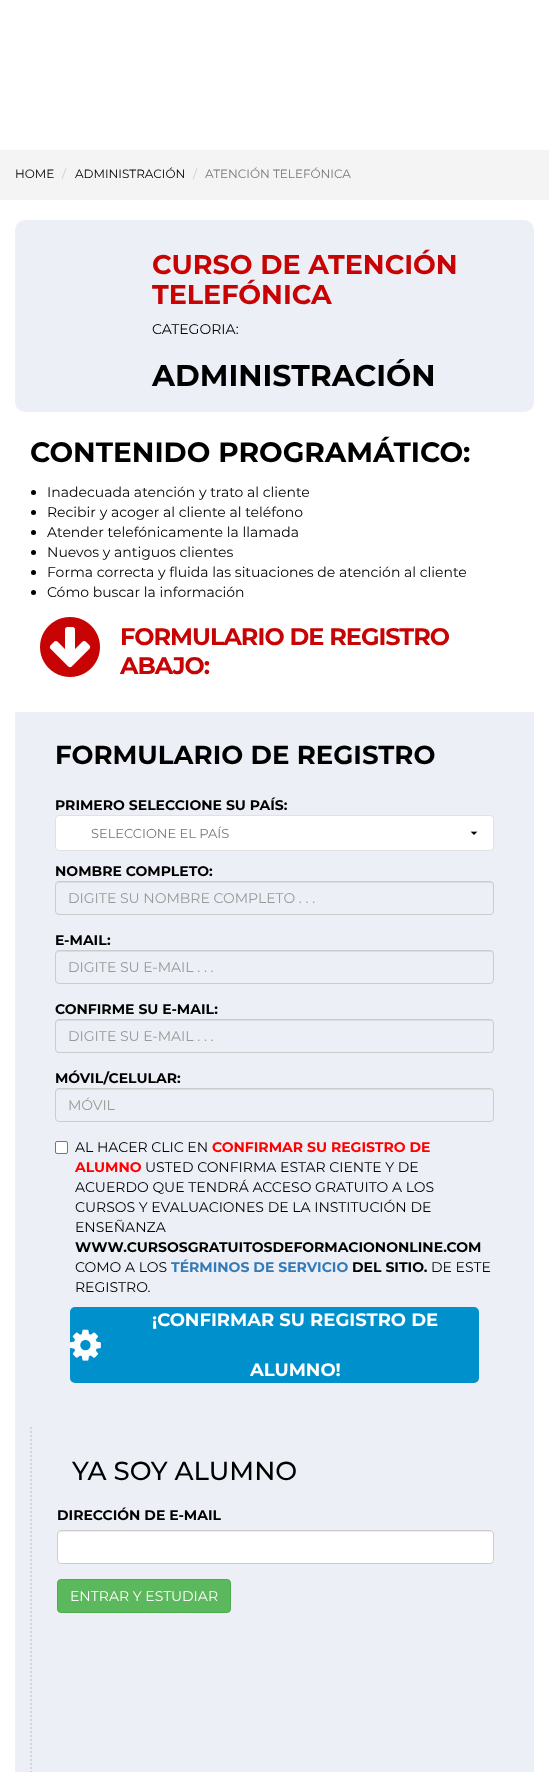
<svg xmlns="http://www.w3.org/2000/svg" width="549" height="1772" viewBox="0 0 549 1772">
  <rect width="100%" height="100%" fill="#ffffff"/>
  <rect x="0" y="150" width="549" height="50" fill="#f4f4f4"/>
  <text x="15" y="178" font-family="Montserrat" font-size="12" fill="#000000">HOME</text>
  <text x="62" y="178" font-family="Montserrat" font-size="12" fill="#cccccc">/</text>
  <text x="75" y="178" font-family="Montserrat" font-size="12" fill="#000000">ADMINISTRACIÓN</text>
  <text x="193" y="178" font-family="Montserrat" font-size="12" fill="#cccccc">/</text>
  <text x="205" y="178" font-family="Montserrat" font-size="12" fill="#777777">ATENCIÓN TELEFÓNICA</text>
  <rect x="15" y="220" width="519" height="192" rx="10" fill="#edeff6"/>
  <text x="152" y="274" font-family="Montserrat" font-size="27" font-weight="bold" fill="#c70304">CURSO DE ATENCIÓN</text>
  <text x="152" y="304" font-family="Montserrat" font-size="27" font-weight="bold" fill="#c70304">TELEFÓNICA</text>
  <text x="152" y="334" font-family="Montserrat" font-size="14" fill="#000000">CATEGORIA:</text>
  <text x="152" y="386" font-family="Montserrat" font-size="30" font-weight="bold" fill="#000000">ADMINISTRACIÓN</text>
  <text x="30" y="462" font-family="Montserrat" font-size="28" font-weight="bold" fill="#000000">CONTENIDO PROGRAMÁTICO:</text>
  <circle cx="33.5" cy="492.5" r="2.5" fill="#000000"/>
  <text x="47" y="497" font-family="Montserrat" font-size="14" fill="#000000">Inadecuada atención y trato al cliente</text>
  <circle cx="33.5" cy="512.5" r="2.5" fill="#000000"/>
  <text x="47" y="517" font-family="Montserrat" font-size="14" fill="#000000">Recibir y acoger al cliente al teléfono</text>
  <circle cx="33.5" cy="532.5" r="2.5" fill="#000000"/>
  <text x="47" y="537" font-family="Montserrat" font-size="14" fill="#000000">Atender telefónicamente la llamada</text>
  <circle cx="33.5" cy="552.5" r="2.5" fill="#000000"/>
  <text x="47" y="557" font-family="Montserrat" font-size="14" fill="#000000">Nuevos y antiguos clientes</text>
  <circle cx="33.5" cy="572.5" r="2.5" fill="#000000"/>
  <text x="47" y="577" font-family="Montserrat" font-size="14" fill="#000000">Forma correcta y fluida las situaciones de atención al cliente</text>
  <circle cx="33.5" cy="592.5" r="2.5" fill="#000000"/>
  <text x="47" y="597" font-family="Montserrat" font-size="14" fill="#000000">Cómo buscar la información</text>
  <image x="40" y="617" width="60" height="60" href="img1.png"/>
  <text x="120" y="645" font-family="Montserrat" font-size="24" font-weight="bold" letter-spacing="-1" fill="#c70304">FORMULARIO DE REGISTRO</text>
  <text x="120" y="674" font-family="Montserrat" font-size="24" font-weight="bold" letter-spacing="-1" fill="#c70304">ABAJO:</text>
  <rect x="15" y="712" width="519" height="1060" fill="#edeff6"/>
  <text x="55" y="764" font-family="Montserrat" font-size="26" font-weight="bold" fill="#000000">FORMULARIO DE REGISTRO</text>
  <text x="55" y="810" font-family="Montserrat" font-size="14" font-weight="bold" fill="#000000">PRIMERO SELECCIONE SU PAÍS:</text>
  <rect x="55.5" y="815.5" width="438" height="35" rx="3.5" fill="#ffffff" stroke="#e1e1e1"/>
  <image x="470" y="831" width="8" height="4" href="img2.png"/>
  <text x="91" y="838" font-family="Montserrat" font-size="13" fill="#777777">SELECCIONE EL PAÍS</text>
  <text x="55" y="876" font-family="Montserrat" font-size="14" font-weight="bold" fill="#000000">NOMBRE COMPLETO:</text>
  <path d="M59 883H490C492 883 493 884 493 886C493 884 492 882 490 882H58L56 884V886C56 884 57 883 59 883Z" fill="#dbdde4"/>
  <rect x="55.5" y="881.5" width="438" height="33" rx="3.5" fill="none" stroke="#cccccc"/>
  <text x="68" y="903" font-family="Montserrat" font-size="14" fill="#999999">DIGITE SU NOMBRE COMPLETO . . .</text>
  <text x="55" y="945" font-family="Montserrat" font-size="14" font-weight="bold" fill="#000000">E-MAIL:</text>
  <path d="M59 952H490C492 952 493 953 493 955C493 953 492 951 490 951H58L56 953V955C56 953 57 952 59 952Z" fill="#dbdde4"/>
  <rect x="55.5" y="950.5" width="438" height="33" rx="3.5" fill="none" stroke="#cccccc"/>
  <text x="68" y="972" font-family="Montserrat" font-size="14" fill="#999999">DIGITE SU E-MAIL . . .</text>
  <text x="55" y="1014" font-family="Montserrat" font-size="14" font-weight="bold" fill="#000000">CONFIRME SU E-MAIL:</text>
  <path d="M59 1021H490C492 1021 493 1022 493 1024C493 1022 492 1020 490 1020H58L56 1022V1024C56 1022 57 1021 59 1021Z" fill="#dbdde4"/>
  <rect x="55.5" y="1019.5" width="438" height="33" rx="3.5" fill="none" stroke="#cccccc"/>
  <text x="68" y="1041" font-family="Montserrat" font-size="14" fill="#999999">DIGITE SU E-MAIL . . .</text>
  <text x="55" y="1083" font-family="Montserrat" font-size="14" font-weight="bold" fill="#000000">MÓVIL/CELULAR:</text>
  <path d="M59 1090H490C492 1090 493 1091 493 1093C493 1091 492 1089 490 1089H58L56 1091V1093C56 1091 57 1090 59 1090Z" fill="#dbdde4"/>
  <rect x="55.5" y="1088.5" width="438" height="33" rx="3.5" fill="none" stroke="#cccccc"/>
  <text x="68" y="1110" font-family="Montserrat" font-size="14" fill="#999999">MÓVIL</text>
  <rect x="55.5" y="1141.5" width="12" height="12" rx="1.5" fill="#ffffff" stroke="#767676"/>
  <text x="75" y="1152" font-family="Montserrat" font-size="14" fill="#000000">AL HACER CLIC EN</text>
  <text x="212" y="1152" font-family="Montserrat" font-size="14" font-weight="bold" fill="#ff0000">CONFIRMAR SU REGISTRO DE</text>
  <text x="75" y="1172" font-family="Montserrat" font-size="14" font-weight="bold" fill="#ff0000">ALUMNO</text>
  <text x="145" y="1172" font-family="Montserrat" font-size="14" fill="#000000">USTED CONFIRMA ESTAR CIENTE Y DE</text>
  <text x="75" y="1192" font-family="Montserrat" font-size="14" fill="#000000">ACUERDO QUE TENDRÁ ACCESO GRATUITO A LOS</text>
  <text x="75" y="1212" font-family="Montserrat" font-size="14" fill="#000000">CURSOS Y EVALUACIONES DE LA INSTITUCIÓN DE</text>
  <text x="75" y="1232" font-family="Montserrat" font-size="14" fill="#000000">ENSEÑANZA</text>
  <text x="75" y="1252" font-family="Montserrat" font-size="14" font-weight="bold" fill="#000000">WWW.CURSOSGRATUITOSDEFORMACIONONLINE.COM</text>
  <text x="75" y="1272" font-family="Montserrat" font-size="14" fill="#000000">COMO A LOS</text>
  <text x="171" y="1272" font-family="Montserrat" font-size="14" font-weight="bold" fill="#337ab7">TÉRMINOS DE SERVICIO</text>
  <text x="352" y="1272" font-family="Montserrat" font-size="14" font-weight="bold" fill="#000000">DEL SITIO.</text>
  <text x="431" y="1272" font-family="Montserrat" font-size="14" fill="#000000">DE ESTE</text>
  <text x="75" y="1292" font-family="Montserrat" font-size="14" fill="#000000">REGISTRO.</text>
  <rect x="70" y="1307" width="409" height="76" rx="5" fill="#0091cc"/>
  <text x="152" y="1326" font-family="Montserrat" font-size="18" font-weight="bold" fill="#ffffff">¡CONFIRMAR SU REGISTRO DE</text>
  <image x="70" y="1329" width="31" height="32" href="img3.png"/>
  <text x="250" y="1376" font-family="Montserrat" font-size="18" font-weight="bold" fill="#ffffff">ALUMNO!</text>
  <path d="M31 1427V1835" fill="none" stroke="#d4d4d4" stroke-width="2" stroke-dasharray="2 2"/>
  <text x="72" y="1480" font-family="Montserrat" font-size="26" font-weight="500" fill="#000000">YA SOY ALUMNO</text>
  <text x="57" y="1520" font-family="Montserrat" font-size="14" font-weight="bold" fill="#000000">DIRECCIÓN DE E-MAIL</text>
  <rect x="57" y="1530" width="437" height="34" rx="4" fill="#ffffff"/>
  <path d="M61 1532H490C492 1532 493 1533 493 1535C493 1533 492 1531 490 1531H60L58 1533V1535C58 1533 59 1532 61 1532Z" fill="#ececec"/>
  <rect x="57.5" y="1530.5" width="436" height="33" rx="3.5" fill="none" stroke="#cccccc"/>
  <rect x="57.5" y="1579.5" width="173" height="33" rx="3.5" fill="#5cb85c" stroke="#4cae4c"/>
  <text x="70" y="1601" font-family="Montserrat" font-size="14" fill="#ffffff">ENTRAR Y ESTUDIAR</text>
</svg>
